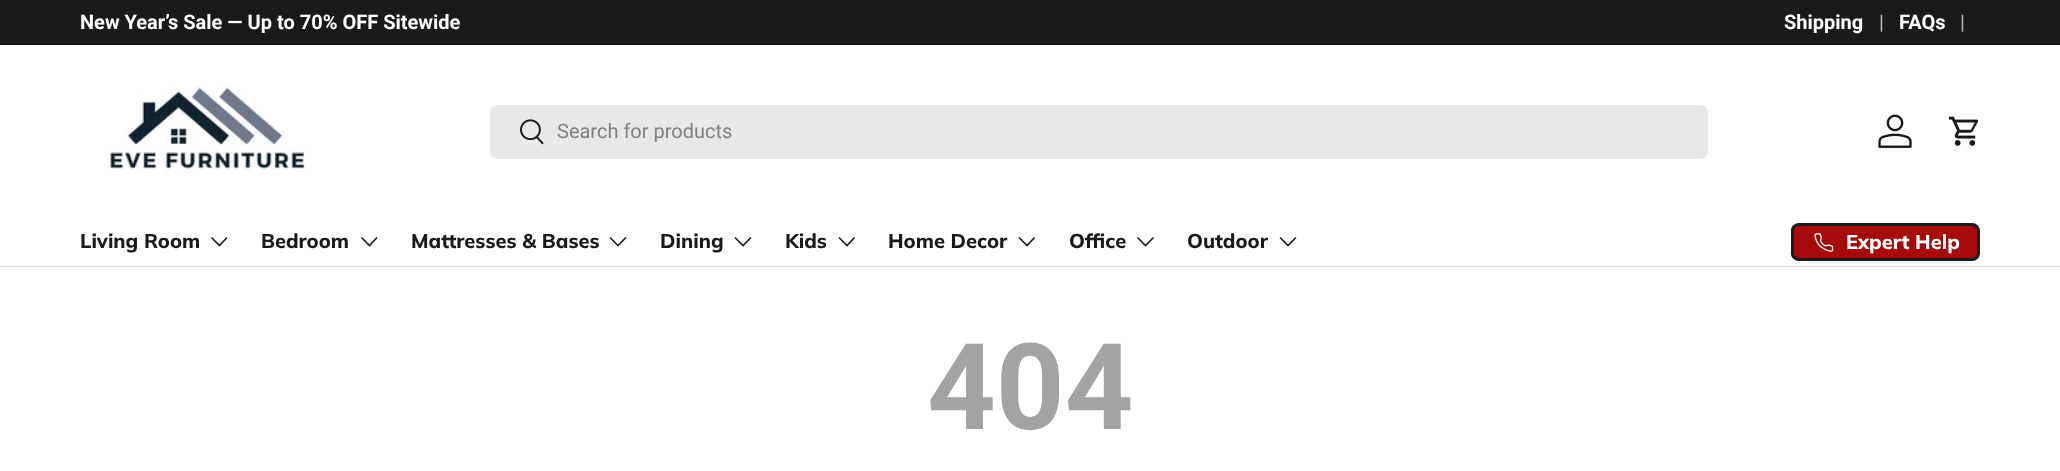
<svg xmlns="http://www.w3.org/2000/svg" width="2060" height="471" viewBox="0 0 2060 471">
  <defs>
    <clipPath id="clip1"><rect x="1791" y="223" width="189" height="38" rx="8"/></clipPath>
    <linearGradient id="g1" gradientUnits="userSpaceOnUse" x1="1438" y1="176" x2="1965" y2="308"><stop offset="0.6" stop-color="#c03232"/><stop offset="0.6" stop-color="#a70a0a"/><stop offset="1" stop-color="#a70a0a"/></linearGradient>
  </defs>
  <rect width="100%" height="100%" fill="#ffffff"/>
  <rect x="0" y="0" width="2060" height="45" fill="#1a1a1a"/>
  <text x="80" y="29" font-family="Roboto" font-size="20" font-weight="bold" fill="#ffffff">New Year’s Sale — Up to 70% OFF Sitewide</text>
  <text x="1784" y="29" font-family="Roboto" font-size="20" font-weight="bold" fill="#ffffff">Shipping</text>
  <text x="1879" y="29" font-family="Roboto" font-size="20" fill="#bababa">|</text>
  <text x="1899" y="29" font-family="Roboto" font-size="20" font-weight="bold" fill="#ffffff">FAQs</text>
  <text x="1960" y="29" font-family="Roboto" font-size="20" fill="#bababa">|</text>
  <rect x="0" y="266" width="2060" height="1" fill="#dddddd"/>
  <image x="109" y="85" width="197" height="90" href="img1.png"/>
  <rect x="490" y="105" width="1218" height="54" rx="8" fill="#e8e8e8"/>
  <image x="520" y="119" width="24" height="26" href="img2.png"/>
  <text x="557" y="138" font-family="Roboto" font-size="20" fill="#818181">Search for products</text>
  <image x="1878" y="114" width="34" height="34" href="img3.png"/>
  <image x="1948" y="116" width="31" height="30" href="img4.png"/>
  <text x="80" y="248" font-family="Muli" font-size="20" font-weight="800" fill="#1a1a1a">Living Room</text>
  <path d="M227 237.5L219.5 245.5L211.5 237.5" fill="none" stroke="#1a1a1a" stroke-width="1.6"/>
  <text x="261" y="248" font-family="Muli" font-size="20" font-weight="800" fill="#1a1a1a">Bedroom</text>
  <path d="M377 237.5L369.5 245.5L361.5 237.5" fill="none" stroke="#1a1a1a" stroke-width="1.6"/>
  <text x="411" y="248" font-family="Muli" font-size="20" font-weight="800" fill="#1a1a1a">Mattresses &amp; Bases</text>
  <path d="M626 237.5L618 245.5L610 237.5" fill="none" stroke="#1a1a1a" stroke-width="1.6"/>
  <text x="660" y="248" font-family="Muli" font-size="20" font-weight="800" fill="#1a1a1a">Dining</text>
  <path d="M751 237.5L743 245.5L735 237.5" fill="none" stroke="#1a1a1a" stroke-width="1.6"/>
  <text x="785" y="248" font-family="Muli" font-size="20" font-weight="800" fill="#1a1a1a">Kids</text>
  <path d="M854.5 237.5L847 245.5L839 237.5" fill="none" stroke="#1a1a1a" stroke-width="1.6"/>
  <text x="888" y="248" font-family="Muli" font-size="20" font-weight="800" fill="#1a1a1a">Home Decor</text>
  <path d="M1034.5 237.5L1027 245.5L1019 237.5" fill="none" stroke="#1a1a1a" stroke-width="1.6"/>
  <text x="1069" y="248" font-family="Muli" font-size="20" font-weight="800" fill="#1a1a1a">Office</text>
  <path d="M1153.5 237.5L1145.5 245.5L1137.5 237.5" fill="none" stroke="#1a1a1a" stroke-width="1.6"/>
  <text x="1187" y="248" font-family="Muli" font-size="20" font-weight="800" fill="#1a1a1a">Outdoor</text>
  <path d="M1296 237.5L1288 245.5L1280 237.5" fill="none" stroke="#1a1a1a" stroke-width="1.6"/>
  <g clip-path="url(#clip1)">
    <rect x="1791" y="225" width="187" height="34" fill="url(#g1)"/>
  </g>
  <rect x="1792.5" y="224.5" width="186" height="35" rx="6.5" fill="none" stroke="#1a1a1a" stroke-width="3"/>
  <image x="1814" y="233" width="20" height="19" href="img5.png"/>
  <text x="1846" y="249" font-family="Muli" font-size="20" font-weight="800" fill="#ffffff">Expert Help</text>
  <text x="927" y="429" font-family="Roboto" font-size="120" font-weight="bold" fill="#a3a3a3">404</text>
</svg>
